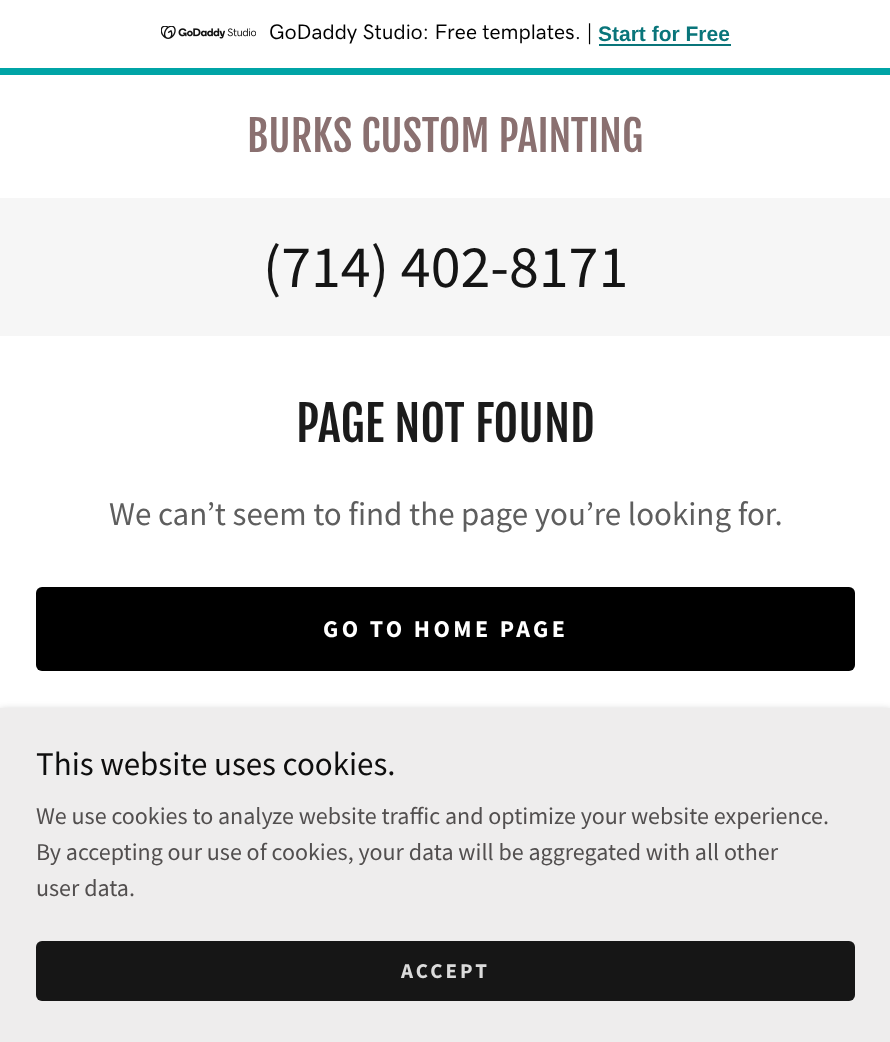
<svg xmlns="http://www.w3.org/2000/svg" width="890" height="1042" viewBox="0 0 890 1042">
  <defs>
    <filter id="blur1" x="-50%" y="-200%" width="200%" height="500%"><feGaussianBlur stdDeviation="4.5"/></filter>
  </defs>
  <rect width="100%" height="100%" fill="#ffffff"/>
  <rect x="0" y="68" width="890" height="7" fill="#00a4a6"/>
  <image x="161" y="26" width="95" height="13" href="img1.png"/>
  <text x="269" y="39" font-family="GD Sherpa" font-size="21" font-weight="500" fill="#000000">GoDaddy Studio: Free templates. |</text>
  <text x="598" y="41" font-family="Liberation Sans" font-size="21" font-weight="bold" fill="#09757a">Start for Free</text>
  <rect x="599" y="44" width="132" height="2" fill="#09757a"/>
  <text x="247" y="152" font-family="Fjalla One" font-size="42" fill="#8a7070">BURKS CUSTOM PAINTING</text>
  <rect x="0" y="198" width="890" height="138" fill="#f6f6f6"/>
  <text x="263" y="287" font-family="Source Sans Pro" font-size="60" fill="#151515">(714) 402-8171</text>
  <text x="296" y="442" font-family="Fjalla One" font-size="48" fill="#1b1b1b">PAGE NOT FOUND</text>
  <text x="109" y="525" font-family="Source Sans Pro" font-size="33" fill="#5e5e5e">We can’t seem to find the page you’re looking for.</text>
  <rect x="36" y="587" width="819" height="84" rx="6" fill="#000000"/>
  <text x="323" y="637" font-family="Source Sans Pro" font-size="24" font-weight="bold" letter-spacing="3.4" fill="#ffffff">GO TO HOME PAGE</text>
  <rect x="0" y="711" width="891" height="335" fill="#000000" fill-opacity="0.3" filter="url(#blur1)"/>
  <rect x="0" y="708" width="890" height="334" fill="#eeeded"/>
  <text x="36" y="775" font-family="Source Sans Pro" font-size="33" fill="#0e0e0e">This website uses cookies.</text>
  <text x="36" y="824" font-family="Source Sans Pro" font-size="24" fill="#524f4f">We use cookies to analyze website traffic and optimize your website experience.</text>
  <text x="36" y="860" font-family="Source Sans Pro" font-size="24" fill="#524f4f">By accepting our use of cookies, your data will be aggregated with all other</text>
  <text x="36" y="896" font-family="Source Sans Pro" font-size="24" fill="#524f4f">user data.</text>
  <rect x="36" y="941" width="819" height="60" rx="6" fill="#161616"/>
  <text x="401" y="978" font-family="Source Sans Pro" font-size="21" font-weight="bold" letter-spacing="3" fill="#dbdbdb">ACCEPT</text>
</svg>
